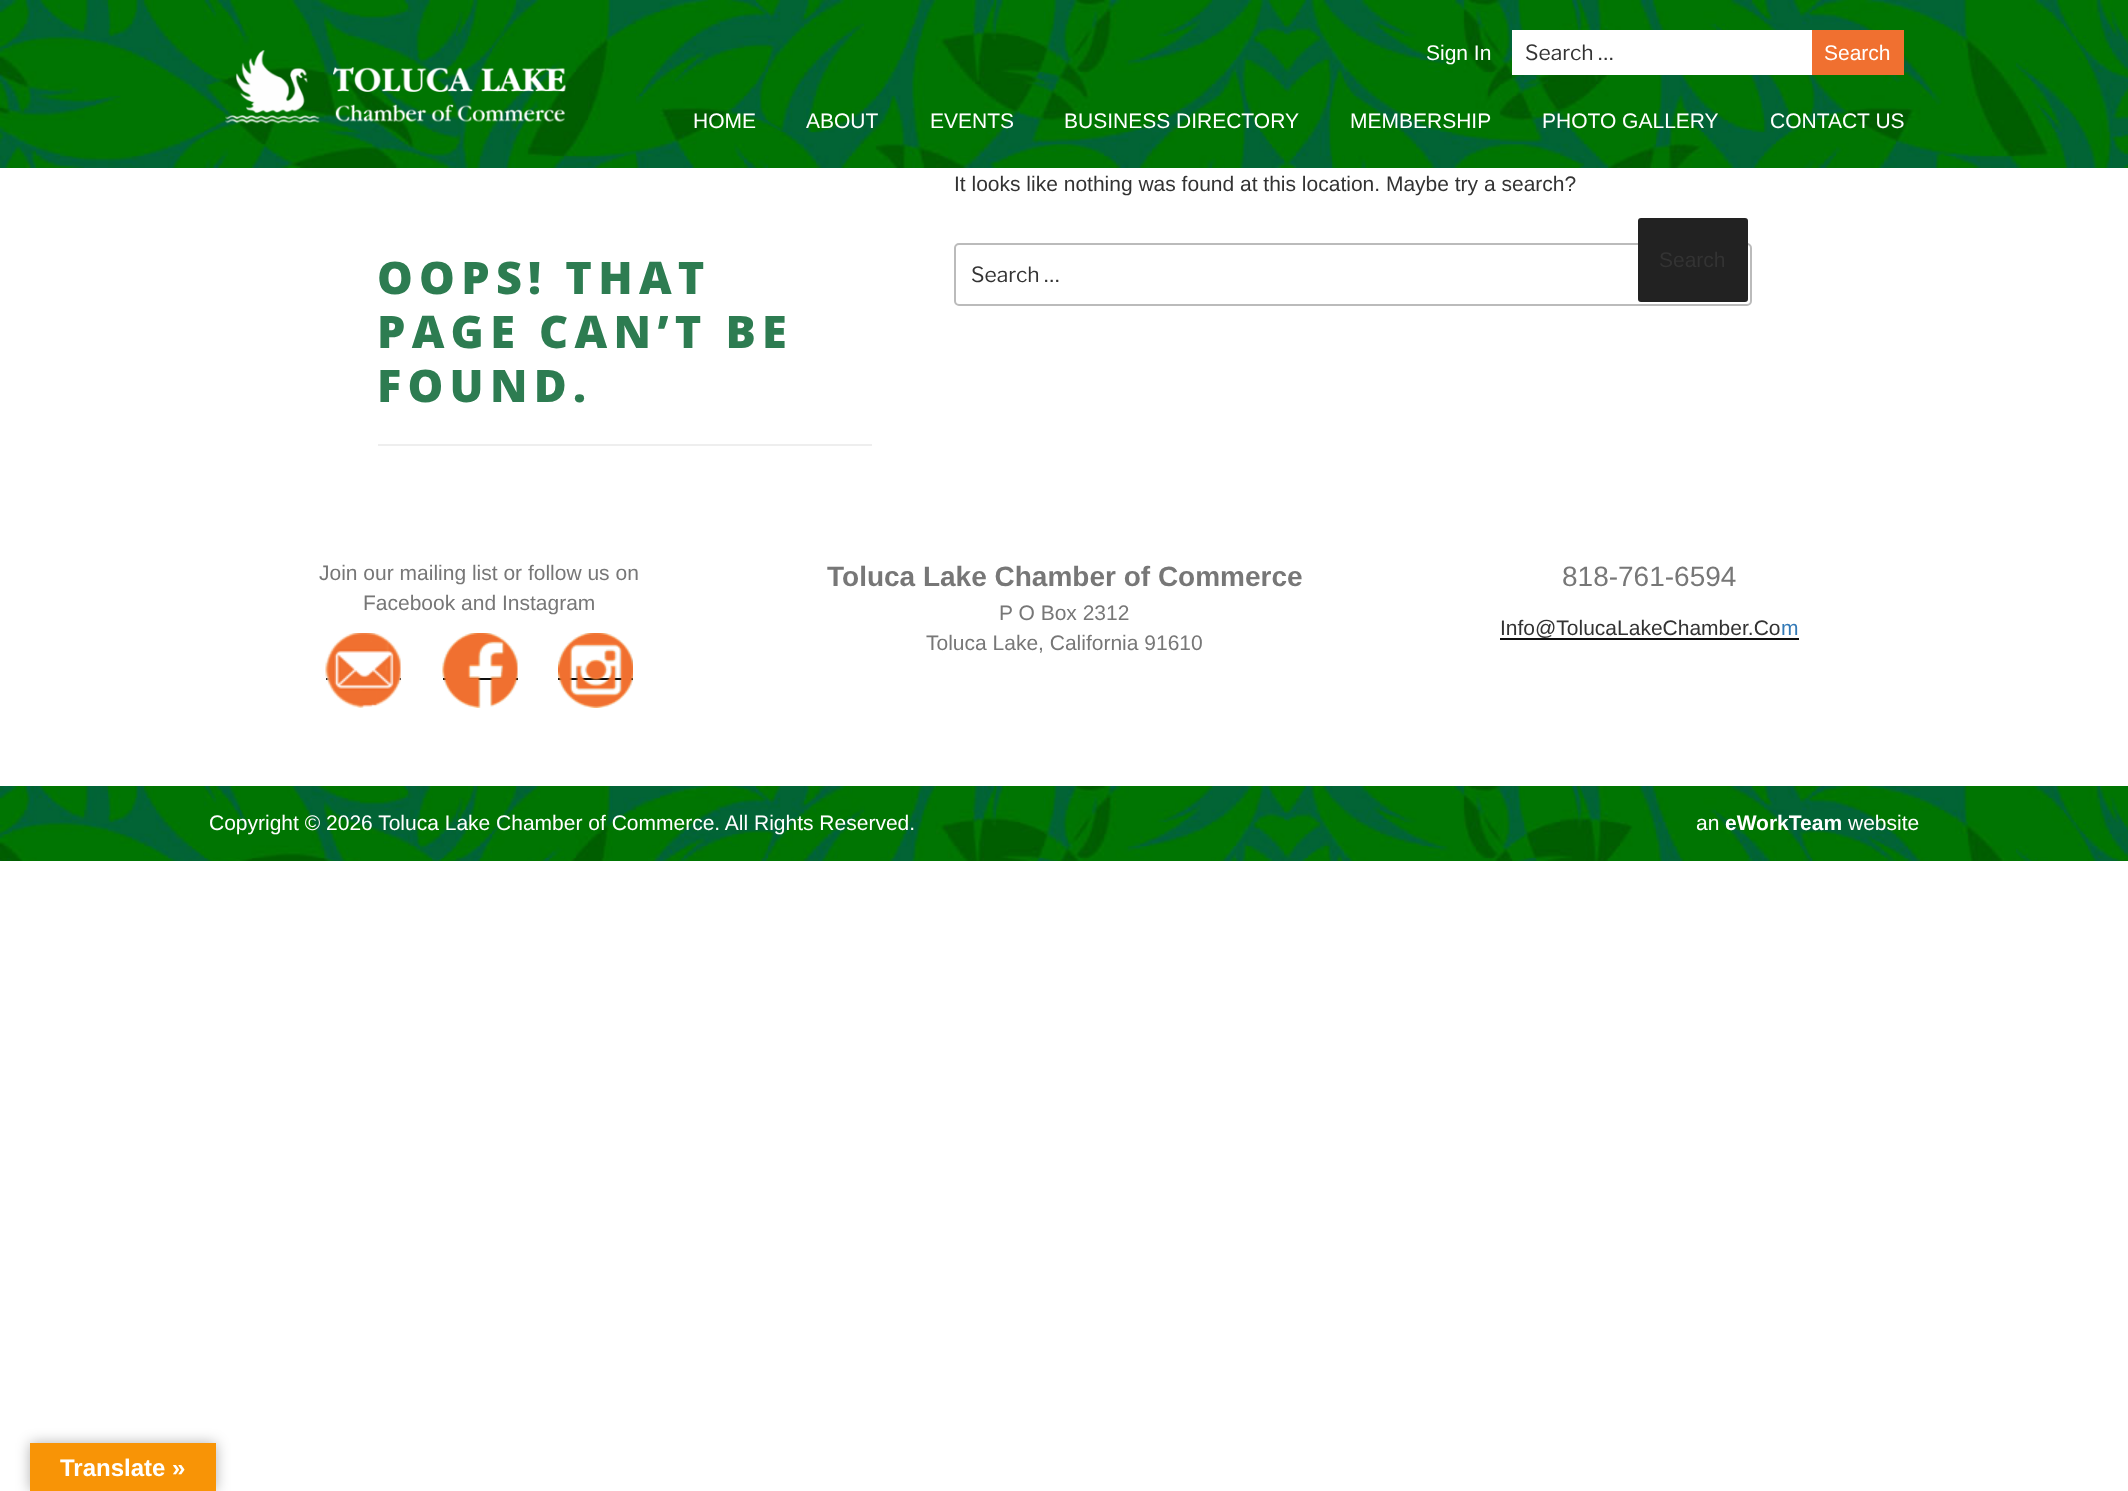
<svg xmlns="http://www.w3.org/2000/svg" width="2128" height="1491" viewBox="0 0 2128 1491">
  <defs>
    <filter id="blur1" x="-50%" y="-200%" width="200%" height="500%"><feGaussianBlur stdDeviation="7"/></filter>
  </defs>
  <rect width="100%" height="100%" fill="#ffffff"/>
  <image x="0" y="0" width="2128" height="168" href="img1.png"/>
  <image x="225" y="50" width="341" height="74" href="img2.png"/>
  <text x="1426" y="60" font-family="Liberation Sans" font-size="21" fill="#ffffff">Sign In</text>
  <rect x="1512" y="30" width="300" height="45" fill="#ffffff"/>
  <text x="1525" y="60" font-family="Libre Franklin" font-size="21" fill="#333333">Search …</text>
  <rect x="1812" y="30" width="92" height="45" fill="#f07030"/>
  <text x="1824" y="60" font-family="Liberation Sans" font-size="21" fill="#ffffff">Search</text>
  <text x="693" y="128" font-family="Liberation Sans" font-size="21" fill="#ffffff">HOME</text>
  <text x="806" y="128" font-family="Liberation Sans" font-size="21" fill="#ffffff">ABOUT</text>
  <text x="930" y="128" font-family="Liberation Sans" font-size="21" fill="#ffffff">EVENTS</text>
  <text x="1064" y="128" font-family="Liberation Sans" font-size="21" fill="#ffffff">BUSINESS DIRECTORY</text>
  <text x="1350" y="128" font-family="Liberation Sans" font-size="21" fill="#ffffff">MEMBERSHIP</text>
  <text x="1542" y="128" font-family="Liberation Sans" font-size="21" fill="#ffffff">PHOTO GALLERY</text>
  <text x="1770" y="128" font-family="Liberation Sans" font-size="21" fill="#ffffff">CONTACT US</text>
  <text x="954" y="191" font-family="Liberation Sans" font-size="21" fill="#333333">It looks like nothing was found at this location. Maybe try a search?</text>
  <rect x="955" y="244" width="796" height="61" rx="4" fill="none" stroke="#bbbbbb" stroke-width="2"/>
  <rect x="1638" y="218" width="110" height="84" rx="3" fill="#222222"/>
  <text x="1659" y="267" font-family="Liberation Sans" font-size="21" fill="#333333">Search</text>
  <text x="971" y="282" font-family="Libre Franklin" font-size="21" fill="#333333">Search …</text>
  <rect x="378" y="444" width="494" height="2" fill="#eeeeee"/>
  <text x="377" y="294" font-family="Open Sans" font-size="45" font-weight="800" letter-spacing="6.25" fill="#2d7c51">OOPS! THAT</text>
  <text x="377" y="348" font-family="Open Sans" font-size="45" font-weight="800" letter-spacing="6.25" fill="#2d7c51">PAGE CAN’T BE</text>
  <text x="377" y="402" font-family="Open Sans" font-size="45" font-weight="800" letter-spacing="6.25" fill="#2d7c51">FOUND.</text>
  <text x="319" y="580" font-family="Liberation Sans" font-size="21" fill="#777777">Join our mailing list or follow us on</text>
  <text x="363" y="610" font-family="Liberation Sans" font-size="21" fill="#777777">Facebook and Instagram</text>
  <rect x="326" y="678" width="75" height="2" fill="#0f0f0f"/>
  <image x="325" y="633" width="76" height="75" href="img3.png"/>
  <rect x="443" y="678" width="75" height="2" fill="#0f0f0f"/>
  <image x="442" y="633" width="76" height="75" href="img4.png"/>
  <rect x="558" y="678" width="75" height="2" fill="#0f0f0f"/>
  <image x="558" y="633" width="75" height="75" href="img5.png"/>
  <text x="827" y="586" font-family="Liberation Sans" font-size="28" font-weight="bold" fill="#777777">Toluca Lake Chamber of Commerce</text>
  <text x="999" y="620" font-family="Liberation Sans" font-size="21" fill="#777777">P O Box 2312</text>
  <text x="926" y="650" font-family="Liberation Sans" font-size="21" fill="#777777">Toluca Lake, California 91610</text>
  <text x="1562" y="586" font-family="Liberation Sans" font-size="28" fill="#777777">818-761-6594</text>
  <text x="1500" y="635" font-family="Liberation Sans" font-size="21" fill="#333333">Info@TolucaLakeChamber.Co</text>
  <text x="1781" y="635" font-family="Liberation Sans" font-size="21" fill="#337ab7">m</text>
  <rect x="1500" y="638" width="299" height="2" fill="#0f0f0f"/>
  <image x="0" y="786" width="2128" height="75" href="img6.png"/>
  <text x="209" y="830" font-family="Liberation Sans" font-size="21" fill="#ffffff">Copyright © 2026 Toluca Lake Chamber of Commerce. All Rights Reserved.</text>
  <text x="1696" y="830" font-family="Liberation Sans" font-size="21" fill="#ffffff">an</text>
  <text x="1725" y="830" font-family="Liberation Sans" font-size="21" font-weight="bold" fill="#ffffff">eWorkTeam</text>
  <text x="1848" y="830" font-family="Liberation Sans" font-size="21" fill="#ffffff">website</text>
  <rect x="30" y="1443" width="186" height="48" fill="#000000" fill-opacity="0.3" filter="url(#blur1)"/>
  <rect x="30" y="1443" width="186" height="48" fill="#f89406"/>
  <text x="60" y="1476" font-family="Liberation Sans" font-size="24" font-weight="bold" fill="#ffffff">Translate »</text>
</svg>
